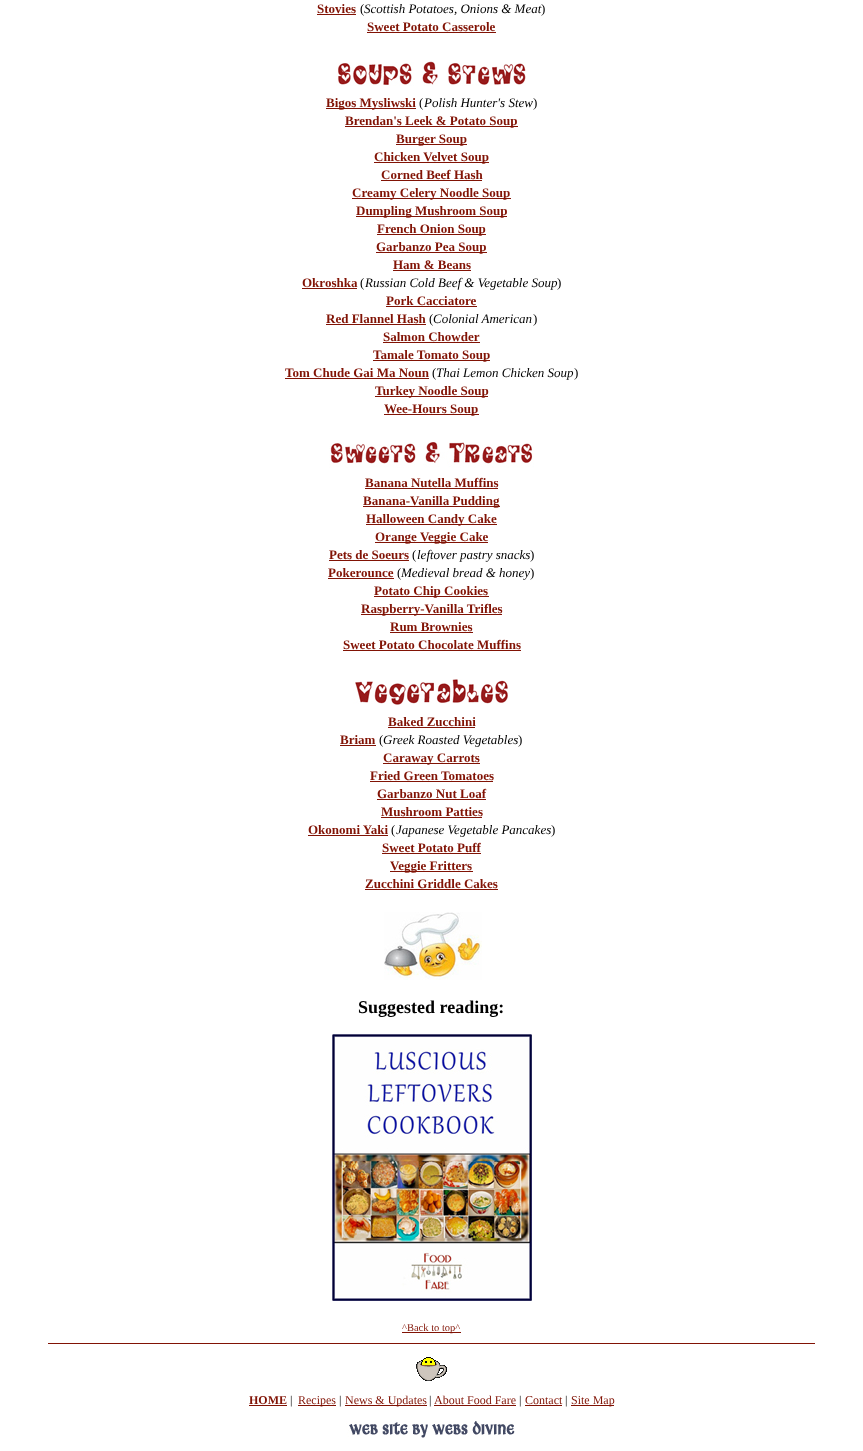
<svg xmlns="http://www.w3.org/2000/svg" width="863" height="1451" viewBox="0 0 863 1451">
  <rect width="100%" height="100%" fill="#ffffff"/>
  <text x="317" y="13" font-family="Liberation Serif" font-size="13" font-weight="bold" fill="#811305">Stovies</text>
  <rect x="317" y="14" width="39" height="1" fill="#811305"/>
  <text x="360" y="13" font-family="Liberation Serif" font-size="13" fill="#000000">(</text>
  <text x="364" y="13" font-family="Liberation Serif" font-size="13" font-style="italic" fill="#000000">Scottish Potatoes, Onions &amp; Meat</text>
  <text x="541" y="13" font-family="Liberation Serif" font-size="13" fill="#000000">)</text>
  <text x="367" y="31" font-family="Liberation Serif" font-size="13" font-weight="bold" fill="#811305">Sweet Potato Casserole</text>
  <rect x="367" y="32" width="129" height="1" fill="#811305"/>
  <image x="336" y="61" width="190" height="25" href="img1.png"/>
  <rect x="326" y="108" width="90" height="1" fill="#811305"/>
  <text x="326" y="107" font-family="Liberation Serif" font-size="13" font-weight="bold" fill="#811305">Bigos Mysliwski</text>
  <text x="419" y="107" font-family="Liberation Serif" font-size="13" fill="#000000">(</text>
  <text x="424" y="107" font-family="Liberation Serif" font-size="13" font-style="italic" fill="#000000">Polish Hunter's Stew</text>
  <text x="533" y="107" font-family="Liberation Serif" font-size="13" fill="#000000">)</text>
  <rect x="345" y="126" width="173" height="1" fill="#811305"/>
  <text x="345" y="125" font-family="Liberation Serif" font-size="13" font-weight="bold" fill="#811305">Brendan's Leek &amp; Potato Soup</text>
  <rect x="396" y="144" width="71" height="1" fill="#811305"/>
  <text x="396" y="143" font-family="Liberation Serif" font-size="13" font-weight="bold" fill="#811305">Burger Soup</text>
  <rect x="374" y="162" width="115" height="1" fill="#811305"/>
  <text x="374" y="161" font-family="Liberation Serif" font-size="13" font-weight="bold" fill="#811305">Chicken Velvet Soup</text>
  <text x="381" y="179" font-family="Liberation Serif" font-size="13" font-weight="bold" fill="#811305">Corned Beef Hash</text>
  <rect x="381" y="180" width="101" height="1" fill="#811305"/>
  <rect x="352" y="198" width="159" height="1" fill="#811305"/>
  <text x="352" y="197" font-family="Liberation Serif" font-size="13" font-weight="bold" fill="#811305">Creamy Celery Noodle Soup</text>
  <rect x="356" y="216" width="151" height="1" fill="#811305"/>
  <text x="356" y="215" font-family="Liberation Serif" font-size="13" font-weight="bold" fill="#811305">Dumpling Mushroom Soup</text>
  <rect x="377" y="234" width="109" height="1" fill="#811305"/>
  <text x="377" y="233" font-family="Liberation Serif" font-size="13" font-weight="bold" fill="#811305">French Onion Soup</text>
  <rect x="376" y="252" width="111" height="1" fill="#811305"/>
  <text x="376" y="251" font-family="Liberation Serif" font-size="13" font-weight="bold" fill="#811305">Garbanzo Pea Soup</text>
  <text x="393" y="269" font-family="Liberation Serif" font-size="13" font-weight="bold" fill="#811305">Ham &amp; Beans</text>
  <rect x="393" y="270" width="78" height="1" fill="#811305"/>
  <text x="302" y="287" font-family="Liberation Serif" font-size="13" font-weight="bold" fill="#811305">Okroshka</text>
  <rect x="302" y="288" width="55" height="1" fill="#811305"/>
  <text x="360" y="287" font-family="Liberation Serif" font-size="13" fill="#000000">(</text>
  <text x="365" y="287" font-family="Liberation Serif" font-size="13" font-style="italic" fill="#000000">Russian Cold Beef &amp; Vegetable Soup</text>
  <text x="557" y="287" font-family="Liberation Serif" font-size="13" fill="#000000">)</text>
  <text x="386" y="305" font-family="Liberation Serif" font-size="13" font-weight="bold" fill="#811305">Pork Cacciatore</text>
  <rect x="386" y="306" width="91" height="1" fill="#811305"/>
  <text x="326" y="323" font-family="Liberation Serif" font-size="13" font-weight="bold" fill="#811305">Red Flannel Hash</text>
  <rect x="326" y="324" width="100" height="1" fill="#811305"/>
  <text x="429" y="323" font-family="Liberation Serif" font-size="13" fill="#000000">(</text>
  <text x="433" y="323" font-family="Liberation Serif" font-size="13" font-style="italic" fill="#000000">Colonial American</text>
  <text x="533" y="323" font-family="Liberation Serif" font-size="13" fill="#000000">)</text>
  <text x="383" y="341" font-family="Liberation Serif" font-size="13" font-weight="bold" fill="#811305">Salmon Chowder</text>
  <rect x="383" y="342" width="97" height="1" fill="#811305"/>
  <rect x="373" y="360" width="117" height="1" fill="#811305"/>
  <text x="373" y="359" font-family="Liberation Serif" font-size="13" font-weight="bold" fill="#811305">Tamale Tomato Soup</text>
  <text x="285" y="377" font-family="Liberation Serif" font-size="13" font-weight="bold" fill="#811305">Tom Chude Gai Ma Noun</text>
  <rect x="285" y="378" width="144" height="1" fill="#811305"/>
  <text x="432" y="377" font-family="Liberation Serif" font-size="13" fill="#000000">(</text>
  <text x="436" y="377" font-family="Liberation Serif" font-size="13" font-style="italic" fill="#000000">Thai Lemon Chicken Soup</text>
  <text x="574" y="377" font-family="Liberation Serif" font-size="13" fill="#000000">)</text>
  <rect x="375" y="396" width="113" height="1" fill="#811305"/>
  <text x="375" y="395" font-family="Liberation Serif" font-size="13" font-weight="bold" fill="#811305">Turkey Noodle Soup</text>
  <rect x="384" y="414" width="95" height="1" fill="#811305"/>
  <text x="384" y="413" font-family="Liberation Serif" font-size="13" font-weight="bold" fill="#811305">Wee-Hours Soup</text>
  <image x="329" y="442" width="205" height="26" href="img2.png"/>
  <text x="365" y="487" font-family="Liberation Serif" font-size="13" font-weight="bold" fill="#811305">Banana Nutella Muffins</text>
  <rect x="365" y="488" width="133" height="1" fill="#811305"/>
  <rect x="363" y="506" width="137" height="1" fill="#811305"/>
  <text x="363" y="505" font-family="Liberation Serif" font-size="13" font-weight="bold" fill="#811305">Banana-Vanilla Pudding</text>
  <rect x="366" y="524" width="131" height="1" fill="#811305"/>
  <text x="366" y="523" font-family="Liberation Serif" font-size="13" font-weight="bold" fill="#811305">Halloween Candy Cake</text>
  <rect x="375" y="542" width="113" height="1" fill="#811305"/>
  <text x="375" y="541" font-family="Liberation Serif" font-size="13" font-weight="bold" fill="#811305">Orange Veggie Cake</text>
  <text x="329" y="559" font-family="Liberation Serif" font-size="13" font-weight="bold" fill="#811305">Pets de Soeurs</text>
  <rect x="329" y="560" width="80" height="1" fill="#811305"/>
  <text x="412" y="559" font-family="Liberation Serif" font-size="13" fill="#000000">(</text>
  <text x="417" y="559" font-family="Liberation Serif" font-size="13" font-style="italic" fill="#000000">leftover pastry snacks</text>
  <text x="530" y="559" font-family="Liberation Serif" font-size="13" fill="#000000">)</text>
  <text x="328" y="577" font-family="Liberation Serif" font-size="13" font-weight="bold" fill="#811305">Pokerounce</text>
  <rect x="328" y="578" width="66" height="1" fill="#811305"/>
  <text x="397" y="577" font-family="Liberation Serif" font-size="13" fill="#000000">(</text>
  <text x="401" y="577" font-family="Liberation Serif" font-size="13" font-style="italic" fill="#000000">Medieval bread &amp; honey</text>
  <text x="530" y="577" font-family="Liberation Serif" font-size="13" fill="#000000">)</text>
  <rect x="374" y="596" width="115" height="1" fill="#811305"/>
  <text x="374" y="595" font-family="Liberation Serif" font-size="13" font-weight="bold" fill="#811305">Potato Chip Cookies</text>
  <rect x="361" y="614" width="141" height="1" fill="#811305"/>
  <text x="361" y="613" font-family="Liberation Serif" font-size="13" font-weight="bold" fill="#811305">Raspberry-Vanilla Trifles</text>
  <text x="390" y="631" font-family="Liberation Serif" font-size="13" font-weight="bold" fill="#811305">Rum Brownies</text>
  <rect x="390" y="632" width="83" height="1" fill="#811305"/>
  <text x="343" y="649" font-family="Liberation Serif" font-size="13" font-weight="bold" fill="#811305">Sweet Potato Chocolate Muffins</text>
  <rect x="343" y="650" width="178" height="1" fill="#811305"/>
  <image x="353" y="679" width="155" height="26" href="img3.png"/>
  <text x="388" y="726" font-family="Liberation Serif" font-size="13" font-weight="bold" fill="#811305">Baked Zucchini</text>
  <rect x="388" y="727" width="87" height="1" fill="#811305"/>
  <text x="340" y="744" font-family="Liberation Serif" font-size="13" font-weight="bold" fill="#811305">Briam</text>
  <rect x="340" y="745" width="36" height="1" fill="#811305"/>
  <text x="379" y="744" font-family="Liberation Serif" font-size="13" fill="#000000">(</text>
  <text x="383" y="744" font-family="Liberation Serif" font-size="13" font-style="italic" fill="#000000">Greek Roasted Vegetables</text>
  <text x="518" y="744" font-family="Liberation Serif" font-size="13" fill="#000000">)</text>
  <rect x="383" y="763" width="97" height="1" fill="#811305"/>
  <text x="383" y="762" font-family="Liberation Serif" font-size="13" font-weight="bold" fill="#811305">Caraway Carrots</text>
  <text x="370" y="780" font-family="Liberation Serif" font-size="13" font-weight="bold" fill="#811305">Fried Green Tomatoes</text>
  <rect x="370" y="781" width="123" height="1" fill="#811305"/>
  <text x="377" y="798" font-family="Liberation Serif" font-size="13" font-weight="bold" fill="#811305">Garbanzo Nut Loaf</text>
  <rect x="377" y="799" width="109" height="1" fill="#811305"/>
  <text x="381" y="816" font-family="Liberation Serif" font-size="13" font-weight="bold" fill="#811305">Mushroom Patties</text>
  <rect x="381" y="817" width="101" height="1" fill="#811305"/>
  <text x="308" y="834" font-family="Liberation Serif" font-size="13" font-weight="bold" fill="#811305">Okonomi Yaki</text>
  <rect x="308" y="835" width="80" height="1" fill="#811305"/>
  <text x="391" y="834" font-family="Liberation Serif" font-size="13" fill="#000000">(</text>
  <text x="396" y="834" font-family="Liberation Serif" font-size="13" font-style="italic" fill="#000000">Japanese Vegetable Pancakes</text>
  <text x="551" y="834" font-family="Liberation Serif" font-size="13" fill="#000000">)</text>
  <text x="382" y="852" font-family="Liberation Serif" font-size="13" font-weight="bold" fill="#811305">Sweet Potato Puff</text>
  <rect x="382" y="853" width="99" height="1" fill="#811305"/>
  <rect x="390" y="871" width="83" height="1" fill="#811305"/>
  <text x="390" y="870" font-family="Liberation Serif" font-size="13" font-weight="bold" fill="#811305">Veggie Fritters</text>
  <text x="365" y="888" font-family="Liberation Serif" font-size="13" font-weight="bold" fill="#811305">Zucchini Griddle Cakes</text>
  <rect x="365" y="889" width="133" height="1" fill="#811305"/>
  <image x="384" y="912" width="98" height="68" href="img4.png"/>
  <text x="358" y="1013" font-family="Liberation Serif" font-size="18" font-weight="bold" fill="#000000">Suggested reading:</text>
  <image x="332" y="1034" width="200" height="267" href="img5.png"/>
  <rect x="402" y="1332" width="59" height="1" fill="#811305"/>
  <text x="402" y="1331" font-family="Liberation Serif" font-size="10.5" fill="#811305">^Back to top^</text>
  <rect x="48" y="1343" width="767" height="1" fill="#811305"/>
  <image x="416" y="1357" width="31" height="24" href="img6.png"/>
  <text x="249" y="1404" font-family="Liberation Serif" font-size="12" font-weight="bold" fill="#811305">HOME</text>
  <rect x="249" y="1405" width="38" height="1" fill="#811305"/>
  <text x="290" y="1404" font-family="Liberation Serif" font-size="12" fill="#000000">|</text>
  <rect x="298" y="1405" width="38" height="1" fill="#811305"/>
  <text x="298" y="1404" font-family="Liberation Serif" font-size="12" fill="#811305">Recipes</text>
  <text x="339" y="1404" font-family="Liberation Serif" font-size="12" fill="#000000">|</text>
  <rect x="345" y="1405" width="82" height="1" fill="#811305"/>
  <text x="345" y="1404" font-family="Liberation Serif" font-size="12" fill="#811305">News &amp; Updates</text>
  <text x="429" y="1404" font-family="Liberation Serif" font-size="12" fill="#000000">|</text>
  <text x="434" y="1404" font-family="Liberation Serif" font-size="12" fill="#811305">About Food Fare</text>
  <rect x="434" y="1405" width="82" height="1" fill="#811305"/>
  <text x="519" y="1404" font-family="Liberation Serif" font-size="12" fill="#000000">|</text>
  <text x="525" y="1404" font-family="Liberation Serif" font-size="12" fill="#811305">Contact</text>
  <rect x="525" y="1405" width="37" height="1" fill="#811305"/>
  <text x="565" y="1404" font-family="Liberation Serif" font-size="12" fill="#000000">|</text>
  <rect x="571" y="1405" width="43" height="1" fill="#811305"/>
  <text x="571" y="1404" font-family="Liberation Serif" font-size="12" fill="#811305">Site Map</text>
  <image x="346" y="1421" width="169" height="17" href="img7.png"/>
</svg>
